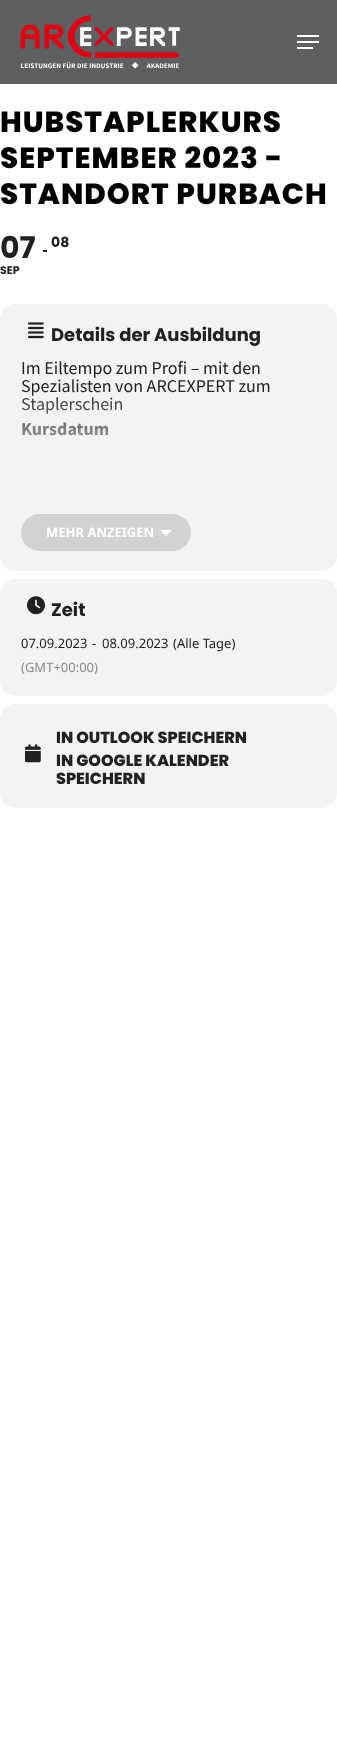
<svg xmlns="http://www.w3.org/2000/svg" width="337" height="1751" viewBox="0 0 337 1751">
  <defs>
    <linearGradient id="g1" gradientUnits="userSpaceOnUse" x1="169" y1="509" x2="169" y2="359"><stop offset="0.2" stop-color="#f3f3f3"/><stop offset="0.8" stop-color="#f3f3f3" stop-opacity="0"/></linearGradient>
  </defs>
  <rect width="100%" height="100%" fill="#ffffff"/>
  <rect x="0" y="0" width="337" height="84" fill="#5e5f61"/>
  <image x="20" y="15" width="160" height="54" href="img1.png"/>
  <rect x="297" y="35" width="22" height="2" fill="#ffffff"/>
  <rect x="297" y="47" width="16" height="2" fill="#ffffff"/>
  <rect x="297" y="41" width="22" height="2" fill="#ffffff"/>
  <text x="0" y="132" font-family="Poppins" font-size="29.25" font-weight="800" letter-spacing="1" fill="#000000">HUBSTAPLERKURS</text>
  <text x="0" y="168" font-family="Poppins" font-size="29.25" font-weight="800" letter-spacing="1" fill="#000000">SEPTEMBER 2023 -</text>
  <text x="0" y="204" font-family="Poppins" font-size="29.25" font-weight="800" letter-spacing="1" fill="#000000">STANDORT PURBACH</text>
  <text x="0" y="258" font-family="Poppins" font-size="30" font-weight="bold" fill="#202124">07</text>
  <text x="0" y="274" font-family="Poppins" font-size="11" font-weight="bold" fill="#202124">SEP</text>
  <text x="51" y="247" font-family="Poppins" font-size="14" font-weight="bold" fill="#202124">08</text>
  <rect x="43" y="250" width="4" height="2" fill="#202124"/>
  <rect x="0" y="304" width="337" height="267" rx="15" fill="#f3f3f3"/>
  <image x="28" y="322" width="16" height="17" href="img2.png"/>
  <text x="51" y="341" font-family="Poppins" font-size="18" font-weight="bold" fill="#202124">Details der Ausbildung</text>
  <text x="21" y="374" font-family="Source Sans Pro" font-size="18" fill="#202124">Im Eiltempo zum Profi – mit den</text>
  <text x="21" y="392" font-family="Source Sans Pro" font-size="18" fill="#202124">Spezialisten von ARCEXPERT zum</text>
  <text x="21" y="410" font-family="Source Sans Pro" font-size="18" fill="#202124">Staplerschein</text>
  <text x="21" y="435" font-family="Source Sans Pro" font-size="18" font-weight="bold" fill="#202124">Kursdatum</text>
  <rect x="21" y="391" width="248" height="45" fill="url(#g1)"/>
  <rect x="21" y="514" width="170" height="37" rx="18.5" fill="#d2d2d2"/>
  <text x="46" y="537" font-family="Noto Sans" font-size="13" font-weight="bold" fill="#ffffff">MEHR ANZEIGEN</text>
  <path d="M160 530H172L166 536Z" fill="#ffffff"/>
  <rect x="0" y="579" width="337" height="117" rx="15" fill="#f3f3f3"/>
  <image x="27" y="596" width="18" height="19" href="img3.png"/>
  <text x="51" y="616" font-family="Poppins" font-size="18" font-weight="bold" fill="#202124">Zeit</text>
  <text x="21" y="648" font-family="Noto Sans" font-size="13" fill="#202124">07.09.2023</text>
  <text x="92" y="648" font-family="Noto Sans" font-size="13" fill="#202124">-</text>
  <text x="102" y="648" font-family="Noto Sans" font-size="13" fill="#202124">08.09.2023</text>
  <text x="173" y="648" font-family="Noto Sans" font-size="13" fill="#202124">(Alle Tage)</text>
  <text x="21" y="672" font-family="Noto Sans" font-size="13" fill="#8a8a8c">(GMT+00:00)</text>
  <rect x="0" y="704" width="337" height="104" rx="15" fill="#f3f3f3"/>
  <image x="25" y="744" width="16" height="19" href="img4.png"/>
  <text x="56" y="743" font-family="Poppins" font-size="16" font-weight="800" fill="#202124">IN OUTLOOK SPEICHERN</text>
  <text x="56" y="766" font-family="Poppins" font-size="16" font-weight="800" fill="#202124">IN GOOGLE KALENDER</text>
  <text x="56" y="784" font-family="Poppins" font-size="16" font-weight="800" fill="#202124">SPEICHERN</text>
</svg>
